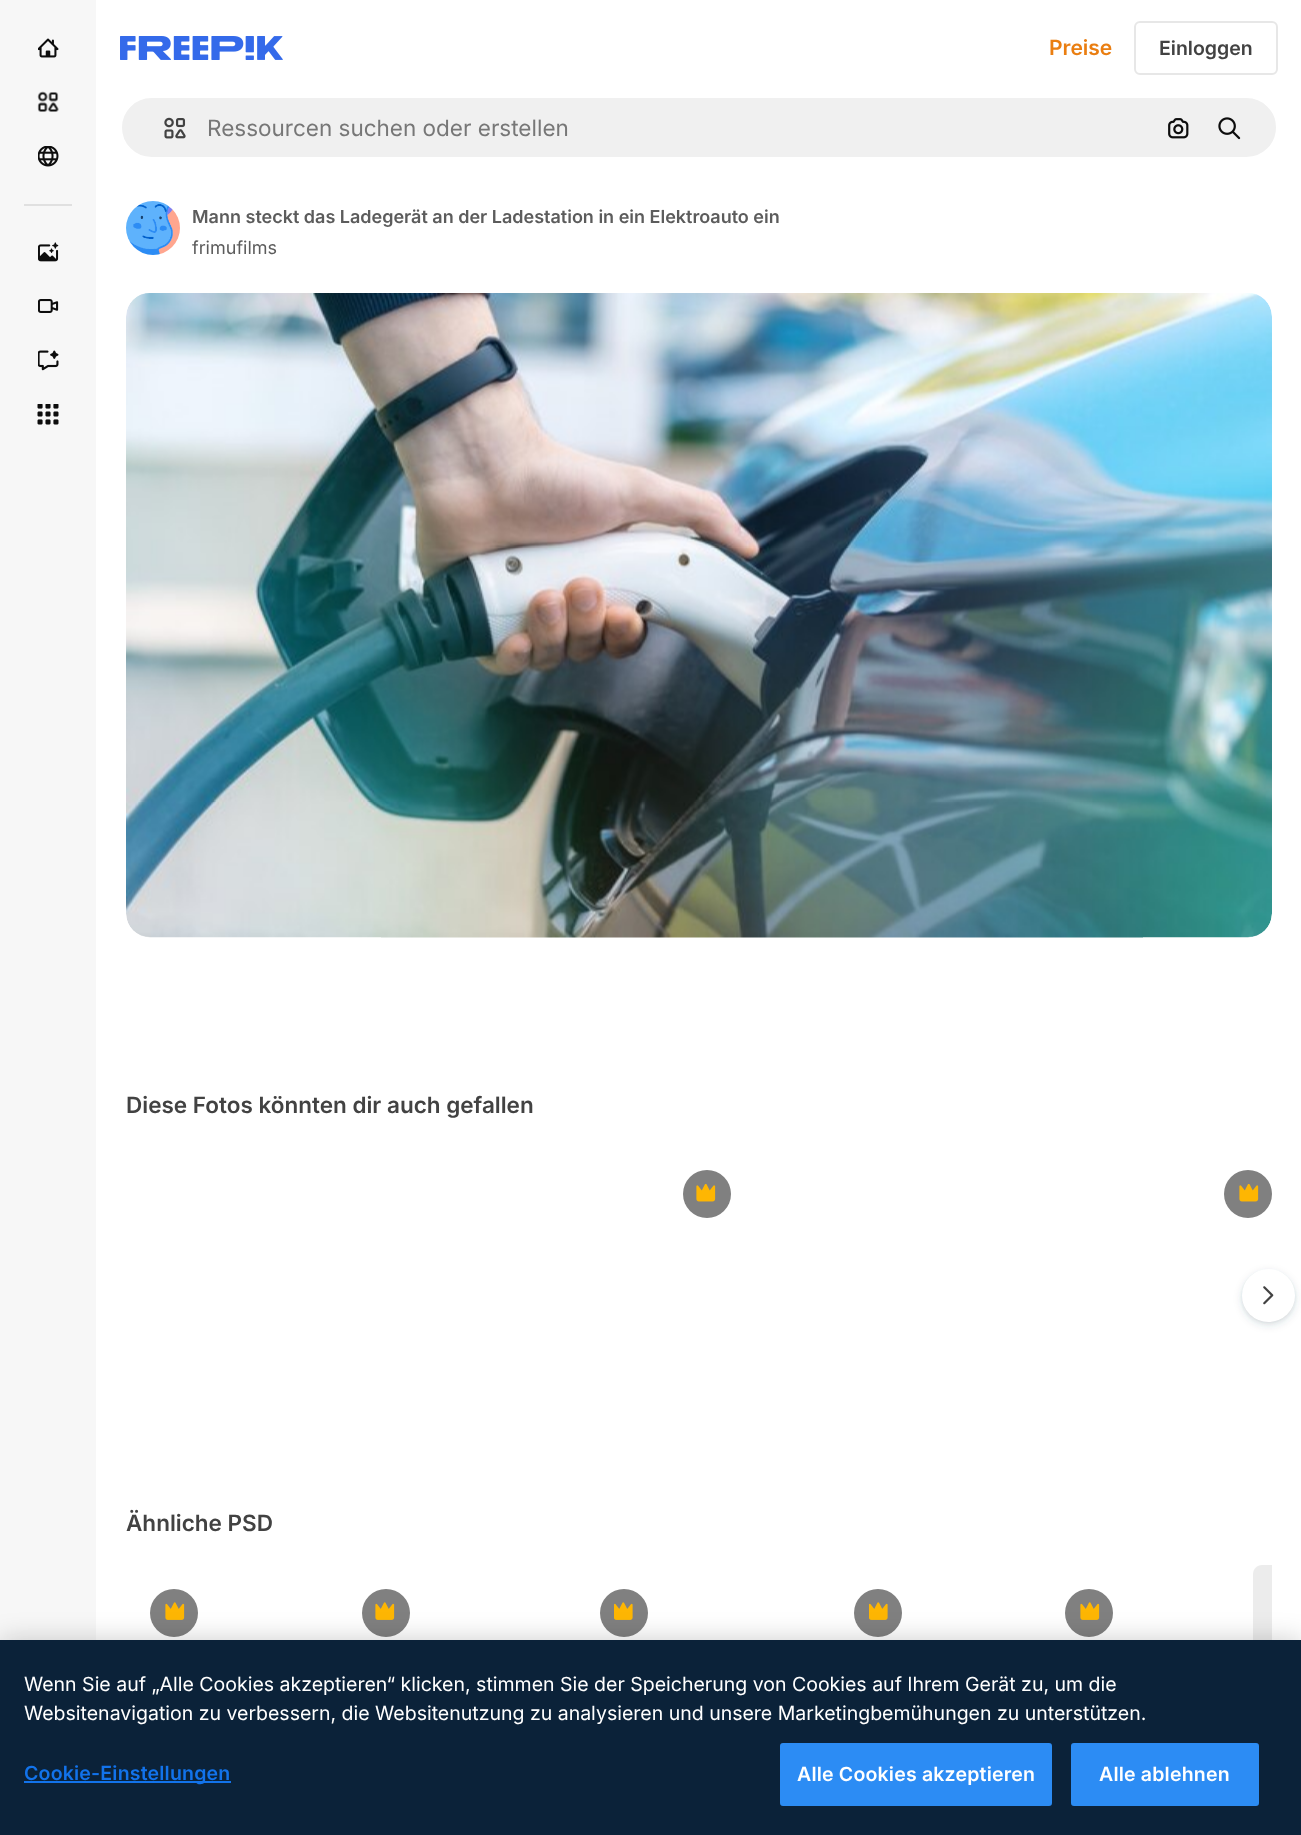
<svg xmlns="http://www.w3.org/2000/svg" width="1301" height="1835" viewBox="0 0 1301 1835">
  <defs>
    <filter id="blur1" x="-50%" y="-200%" width="200%" height="500%"><feGaussianBlur stdDeviation="4"/></filter>
    <filter id="blur2" x="-50%" y="-200%" width="200%" height="500%"><feGaussianBlur stdDeviation="1.5"/></filter>
    <linearGradient id="g1" gradientUnits="userSpaceOnUse" x1="1253" y1="1562" x2="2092" y2="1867"><stop offset="0.08" stop-color="#ececec"/><stop offset="0.18" stop-color="#f5f5f5"/><stop offset="0.33" stop-color="#ececec"/></linearGradient>
    <filter id="blur3" x="-50%" y="-200%" width="200%" height="500%"><feGaussianBlur stdDeviation="13.5"/></filter>
  </defs>
  <rect width="100%" height="100%" fill="#ffffff"/>
  <rect x="0" y="0" width="96" height="1640" fill="#f7f7f7"/>
  <image x="38" y="38" width="21" height="20" href="img1.png"/>
  <image x="37" y="91" width="22" height="21" href="img2.png"/>
  <image x="38" y="146" width="21" height="21" href="img3.png"/>
  <rect x="24" y="204" width="48" height="2" fill="#e0e0e0"/>
  <image x="38" y="242" width="21" height="20" href="img4.png"/>
  <image x="38" y="299" width="21" height="14" href="img5.png"/>
  <image x="38" y="350" width="21" height="21" href="img6.png"/>
  <image x="37" y="404" width="22" height="21" href="img7.png"/>
  <image x="120" y="36" width="163" height="24" href="img8.png"/>
  <text x="1049" y="55" font-family="Inter" font-size="21" font-weight="600" fill="#ea7e11">Preise</text>
  <rect x="1135" y="22" width="142" height="52" rx="5" fill="none" stroke="#e7e7e7" stroke-width="2"/>
  <text x="1159" y="55" font-family="Inter" font-size="19.5" font-weight="600" fill="#424242">Einloggen</text>
  <rect x="121" y="97" width="1156" height="61" rx="30.5" fill="#f0f0f0" stroke="#ffffff" stroke-width="2"/>
  <image x="164" y="117" width="22" height="22" href="img9.png"/>
  <text x="207" y="136" font-family="Inter" font-size="22.5" fill="#777777">Ressourcen suchen oder erstellen</text>
  <image x="1168" y="118" width="21" height="21" href="img10.png"/>
  <image x="1218" y="117" width="23" height="23" href="img11.png"/>
  <image x="126" y="201" width="54" height="54" href="img12.png"/>
  <text x="192" y="223" font-family="Inter" font-size="18" font-weight="600" fill="#5c5c5c">Mann steckt das Ladegerät an der Ladestation in ein Elektroauto ein</text>
  <text x="192" y="254" font-family="Inter" font-size="18" fill="#5c5c5c">frimufilms</text>
  <image x="126" y="293" width="1146" height="645" href="img13.png"/>
  <text x="126" y="1113" font-family="Inter" font-size="22.5" font-weight="600" fill="#424242">Diese Fotos könnten dir auch gefallen</text>
  <circle cx="707" cy="1194" r="24" fill="#808080"/>
  <image x="696" y="1184" width="20" height="18" href="img14.png"/>
  <circle cx="1248" cy="1194" r="24" fill="#808080"/>
  <image x="1239" y="1184" width="20" height="18" href="img14.png"/>
  <rect x="1242" y="1272" width="53" height="53" rx="26.5" fill="#374957" fill-opacity="0.15" filter="url(#blur1)"/>
  <rect x="1242" y="1271" width="53" height="52" rx="26" fill="#374957" fill-opacity="0.1" filter="url(#blur2)"/>
  <circle cx="1268.5" cy="1295.5" r="26.5" fill="#ffffff"/>
  <image x="1263" y="1286" width="11" height="19" href="img15.png"/>
  <text x="126" y="1531" font-family="Inter" font-size="22.5" font-weight="600" fill="#424242">Ähnliche PSD</text>
  <circle cx="174" cy="1613" r="24" fill="#808080"/>
  <image x="165" y="1602" width="20" height="18" href="img16.png"/>
  <circle cx="386" cy="1613" r="24" fill="#808080"/>
  <image x="375" y="1602" width="20" height="18" href="img16.png"/>
  <circle cx="624" cy="1613" r="24" fill="#808080"/>
  <image x="614" y="1602" width="19" height="18" href="img17.png"/>
  <circle cx="878" cy="1613" r="24" fill="#808080"/>
  <image x="869" y="1602" width="19" height="18" href="img17.png"/>
  <circle cx="1089" cy="1613" r="24" fill="#808080"/>
  <image x="1080" y="1602" width="20" height="18" href="img16.png"/>
  <path d="M1262 1565H1272V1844H1262C1257 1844 1253 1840 1253 1835V1574C1253 1569 1257 1565 1262 1565Z" fill="url(#g1)"/>
  <rect x="0" y="1640" width="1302" height="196" fill="#000000" fill-opacity="0.2" filter="url(#blur3)"/>
  <rect x="0" y="1640" width="1301" height="195" fill="#0b2239"/>
  <text x="24" y="1691" font-family="Inter" font-size="19.5" fill="#ffffff">Wenn Sie auf „Alle Cookies akzeptieren“ klicken, stimmen Sie der Speicherung von Cookies auf Ihrem Gerät zu, um die</text>
  <text x="24" y="1720" font-family="Inter" font-size="19.5" fill="#ffffff">Websitenavigation zu verbessern, die Websitenutzung zu analysieren und unsere Marketingbemühungen zu unterstützen.</text>
  <rect x="24" y="1781" width="207" height="2" fill="#1273eb"/>
  <text x="24" y="1780" font-family="Inter" font-size="19.5" font-weight="600" letter-spacing="0.2" fill="#1273eb">Cookie-Einstellungen</text>
  <rect x="781" y="1744" width="270" height="61" rx="2" fill="#2c8cf4" stroke="#2c8cf4" stroke-width="2"/>
  <text x="797" y="1781" font-family="Inter" font-size="19.5" font-weight="600" letter-spacing="0.2" fill="#ffffff">Alle Cookies akzeptieren</text>
  <rect x="1072" y="1744" width="186" height="61" rx="2" fill="#2c8cf4" stroke="#2c8cf4" stroke-width="2"/>
  <text x="1099" y="1781" font-family="Inter" font-size="19.5" font-weight="600" letter-spacing="0.2" fill="#ffffff">Alle ablehnen</text>
</svg>
